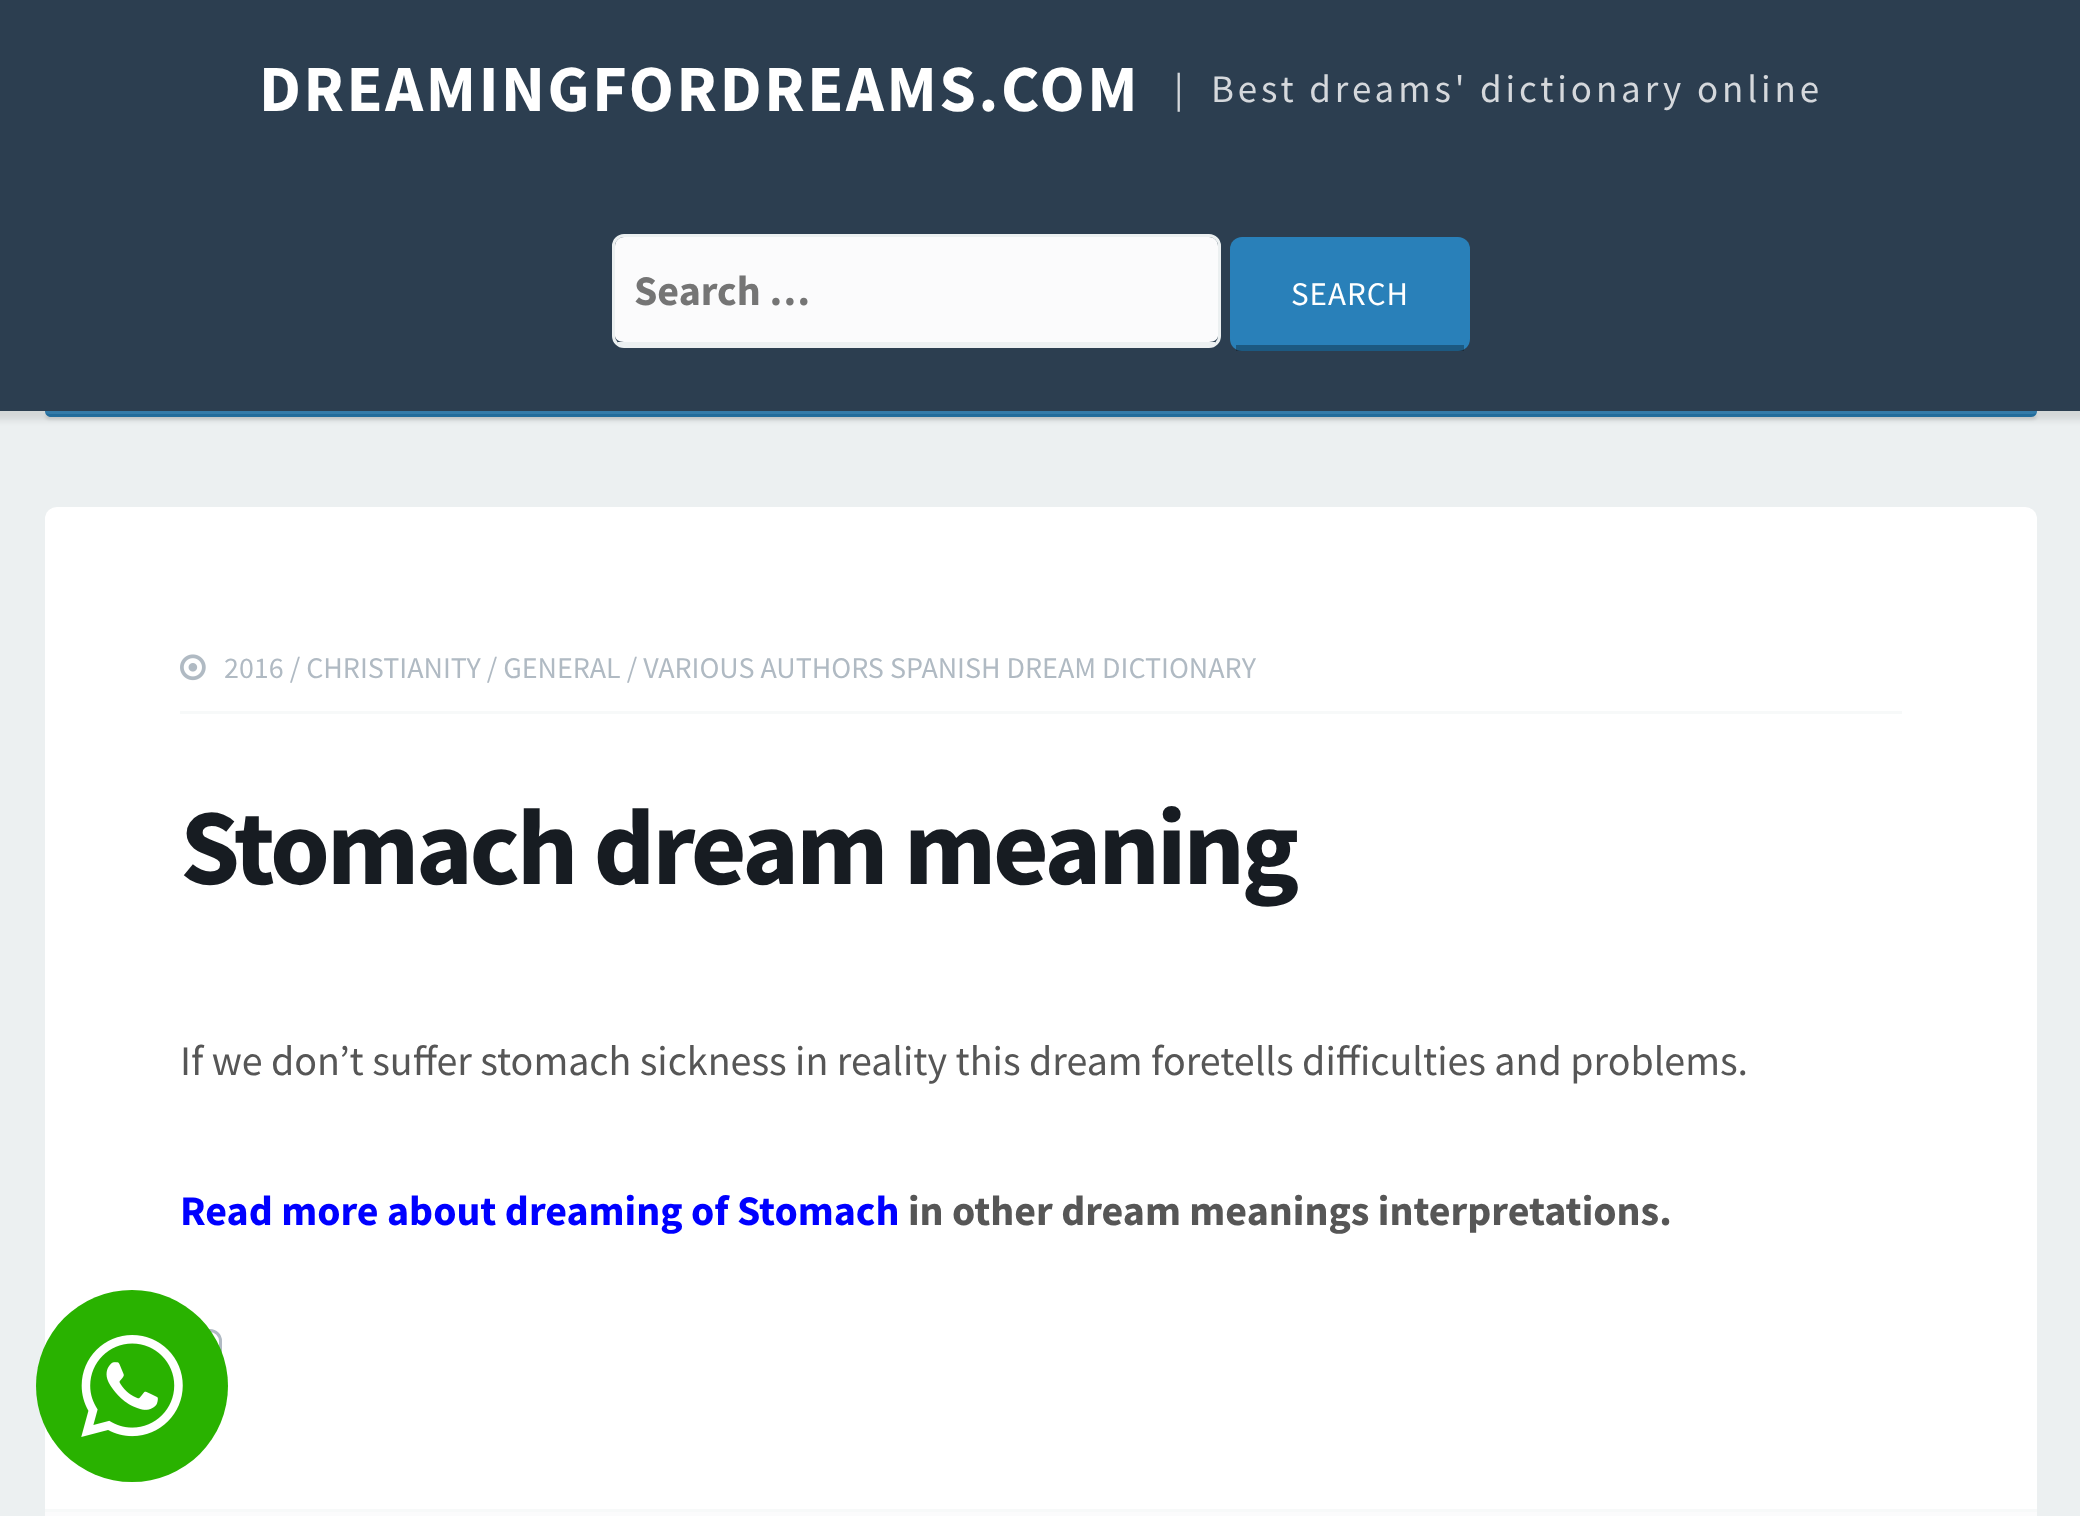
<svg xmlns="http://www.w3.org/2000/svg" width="2080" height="1516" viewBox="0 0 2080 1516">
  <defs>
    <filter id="blur1" x="-50%" y="-200%" width="200%" height="500%"><feGaussianBlur stdDeviation="1.5"/></filter>
    <filter id="blur2" x="-50%" y="-200%" width="200%" height="500%"><feGaussianBlur stdDeviation="3"/></filter>
  </defs>
  <rect width="100%" height="100%" fill="#ecf0f1"/>
  <rect x="45" y="414" width="1992" height="6" rx="6" fill="#000000" fill-opacity="0.1" filter="url(#blur1)"/>
  <path d="M45 411H2037C2037 414.5 2034.5 417 2031 417H51C47.5 417 45 414.5 45 411Z" fill="#2980b9"/>
  <path d="M2036 414L2037 411V414ZM45 411L46 414H45ZM45 411C45 413 48 414 51 414H2031C2034 414 2037 413 2037 411Z" fill="#dcdcdc" fill-opacity="0.1" fill-rule="evenodd"/>
  <path d="M51 417H2031C2033 417 2035 416 2036 414H46C47 416 49 417 51 417Z" fill="#000000" fill-opacity="0.07"/>
  <rect x="-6" y="-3" width="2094" height="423" fill="#000000" fill-opacity="0.1" filter="url(#blur2)"/>
  <rect x="0" y="0" width="2080" height="411" fill="#2c3e50"/>
  <text x="259" y="111" font-family="Source Sans Pro" font-size="66" font-weight="bold" letter-spacing="2.6" fill="#ffffff">DREAMINGFORDREAMS.COM</text>
  <text x="1174" y="102" font-family="Source Sans Pro" font-size="39" letter-spacing="3.9" fill="#d5d8dc">|</text>
  <text x="1211" y="102" font-family="Source Sans Pro" font-size="39" letter-spacing="3.9" fill="#d5d8dc">Best dreams' dictionary online</text>
  <path d="M624 237H1209C1214 237 1218 241 1218 246V336C1218 339 1214 342 1209 342H624C619 342 615 339 615 336V246C615 241 619 237 624 237Z" fill="#fbfbfc"/>
  <rect x="613.5" y="235.5" width="606" height="111" rx="10.5" fill="none" stroke="#ecf0f1" stroke-width="3"/>
  <rect x="618" y="342" width="597" height="3" fill="#ecf0f1"/>
  <text x="634" y="305" font-family="Source Sans Pro" font-size="42" font-weight="bold" fill="#757575">Search …</text>
  <rect x="1230" y="237" width="240" height="114" rx="12" fill="#2980b9"/>
  <rect x="1236" y="345" width="228" height="6" fill="#000000" fill-opacity="0.3"/>
  <text x="1291" y="305" font-family="Source Sans Pro" font-size="33" letter-spacing="1" fill="#ffffff">SEARCH</text>
  <rect x="45" y="507" width="1992" height="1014" rx="12" fill="#ffffff"/>
  <rect x="180" y="711" width="1722" height="3" fill="#f7f9f9"/>
  <image x="180" y="654" width="26" height="27" href="img1.png"/>
  <text x="224" y="678" font-family="Source Sans Pro" font-size="30" fill="#b0bac3">2016 / CHRISTIANITY / GENERAL / VARIOUS AUTHORS SPANISH DREAM DICTIONARY</text>
  <text x="180" y="884" font-family="Source Sans Pro" font-size="108" font-weight="bold" letter-spacing="-3.25" fill="#171c22">Stomach dream meaning</text>
  <text x="180" y="1075" font-family="Source Sans Pro" font-size="42" fill="#565656">If we don’t suffer stomach sickness in reality this dream foretells difficulties and problems.</text>
  <text x="180" y="1225" font-family="Source Sans Pro" font-size="42" font-weight="bold" fill="#0000ff">Read more about dreaming of Stomach</text>
  <text x="908" y="1225" font-family="Source Sans Pro" font-size="42" font-weight="bold" fill="#565656">in other dream meanings interpretations.</text>
  <rect x="181.5" y="1330.5" width="39" height="51" rx="10.5" fill="none" stroke="#b0bac3" stroke-width="3"/>
  <rect x="45" y="1512" width="1992" height="4" fill="#fbfbfc"/>
  <rect x="45" y="1509" width="1992" height="3" fill="#f7f9f9"/>
  <circle cx="132" cy="1386" r="96" fill="#29b200"/>
  <image x="81" y="1335" width="102" height="102" href="img2.png"/>
</svg>
